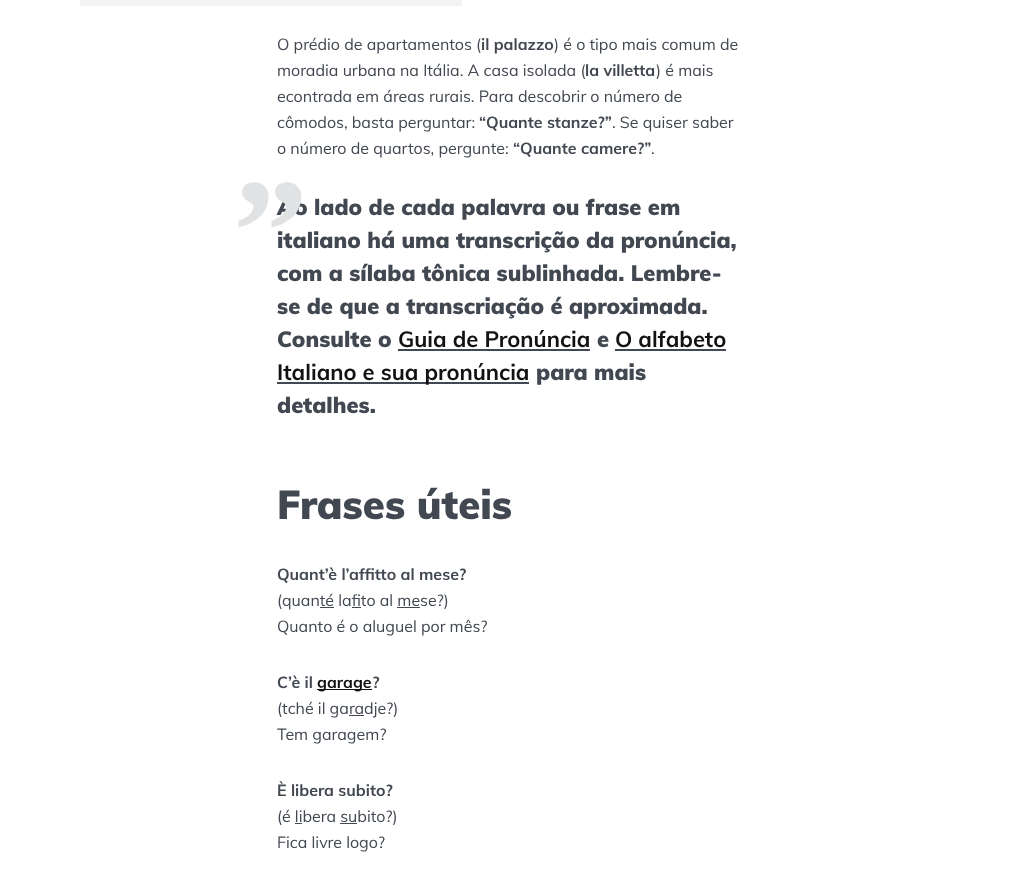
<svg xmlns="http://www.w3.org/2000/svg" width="1018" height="871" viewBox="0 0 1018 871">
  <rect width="100%" height="100%" fill="#ffffff"/>
  <rect x="80" y="0" width="382" height="6" fill="#f2f3f3"/>
  <text x="277" y="50" font-family="Muli" font-size="16" fill="#424851">O prédio de apartamentos (</text>
  <text x="481" y="50" font-family="Muli" font-size="16" font-weight="bold" fill="#424851">il palazzo</text>
  <text x="554" y="50" font-family="Muli" font-size="16" fill="#424851">) é o tipo mais comum de</text>
  <text x="277" y="76" font-family="Muli" font-size="16" fill="#424851">moradia urbana na Itália. A casa isolada (</text>
  <text x="585" y="76" font-family="Muli" font-size="16" font-weight="bold" fill="#424851">la villetta</text>
  <text x="656" y="76" font-family="Muli" font-size="16" fill="#424851">) é mais</text>
  <text x="277" y="102" font-family="Muli" font-size="16" fill="#424851">econtrada em áreas rurais. Para descobrir o número de</text>
  <text x="277" y="128" font-family="Muli" font-size="16" fill="#424851">cômodos, basta perguntar:</text>
  <text x="479" y="128" font-family="Muli" font-size="16" font-weight="bold" fill="#424851">“Quante stanze?”</text>
  <text x="612" y="128" font-family="Muli" font-size="16" fill="#424851">. Se quiser saber</text>
  <text x="277" y="154" font-family="Muli" font-size="16" fill="#424851">o número de quartos, pergunte:</text>
  <text x="513" y="154" font-family="Muli" font-size="16" font-weight="bold" fill="#424851">“Quante camere?”</text>
  <text x="651" y="154" font-family="Muli" font-size="16" fill="#424851">.</text>
  <text x="277" y="215" font-family="Muli" font-size="22" font-weight="900" fill="#424851">Ao lado de cada palavra ou frase em</text>
  <text x="233" y="282" font-family="Liberation Serif" font-size="150" font-weight="bold" fill="#e1e2e3">”</text>
  <text x="277" y="248" font-family="Muli" font-size="22" font-weight="900" fill="#424851">italiano há uma transcrição da pronúncia,</text>
  <text x="277" y="281" font-family="Muli" font-size="22" font-weight="900" fill="#424851">com a sílaba tônica sublinhada. Lembre-</text>
  <text x="277" y="314" font-family="Muli" font-size="22" font-weight="900" fill="#424851">se de que a transcriação é aproximada.</text>
  <text x="277" y="347" font-family="Muli" font-size="22" font-weight="900" fill="#424851">Consulte o</text>
  <text x="398" y="347" font-family="Muli" font-size="22" font-weight="bold" fill="#121212">Guia de Pronúncia</text>
  <rect x="398" y="349" width="192" height="2" fill="#424851"/>
  <text x="597" y="347" font-family="Muli" font-size="22" font-weight="900" fill="#424851">e</text>
  <text x="615" y="347" font-family="Muli" font-size="22" font-weight="bold" fill="#121212">O alfabeto</text>
  <rect x="615" y="349" width="111" height="2" fill="#424851"/>
  <rect x="277" y="382" width="252" height="2" fill="#424851"/>
  <text x="277" y="380" font-family="Muli" font-size="22" font-weight="bold" fill="#121212">Italiano e sua pronúncia</text>
  <text x="536" y="380" font-family="Muli" font-size="22" font-weight="900" fill="#424851">para mais</text>
  <text x="277" y="413" font-family="Muli" font-size="22" font-weight="900" fill="#424851">detalhes.</text>
  <text x="277" y="519" font-family="Muli" font-size="40" font-weight="900" fill="#424851">Frases úteis</text>
  <text x="277" y="580" font-family="Muli" font-size="16" font-weight="bold" fill="#424851">Quant’è l’affitto al mese?</text>
  <text x="277" y="606" font-family="Muli" font-size="16" fill="#424851">(quanté lafito al mese?)</text>
  <rect x="320" y="607" width="14" height="1" fill="#424851"/>
  <rect x="352" y="607" width="9" height="1" fill="#424851"/>
  <rect x="397" y="607" width="23" height="1" fill="#424851"/>
  <text x="277" y="632" font-family="Muli" font-size="16" fill="#424851">Quanto é o aluguel por mês?</text>
  <text x="277" y="688" font-family="Muli" font-size="16" font-weight="bold" fill="#424851">C’è il</text>
  <rect x="317" y="689" width="55" height="1" fill="#121212"/>
  <text x="317" y="688" font-family="Muli" font-size="16" font-weight="bold" fill="#121212">garage</text>
  <text x="372" y="688" font-family="Muli" font-size="16" font-weight="bold" fill="#424851">?</text>
  <text x="277" y="714" font-family="Muli" font-size="16" fill="#424851">(tché il garadje?)</text>
  <rect x="349" y="715" width="15" height="1" fill="#424851"/>
  <text x="277" y="740" font-family="Muli" font-size="16" fill="#424851">Tem garagem?</text>
  <text x="277" y="796" font-family="Muli" font-size="16" font-weight="bold" fill="#424851">È libera subito?</text>
  <text x="277" y="822" font-family="Muli" font-size="16" fill="#424851">(é libera subito?)</text>
  <rect x="295" y="823" width="7" height="1" fill="#424851"/>
  <rect x="340" y="823" width="17" height="1" fill="#424851"/>
  <text x="277" y="848" font-family="Muli" font-size="16" fill="#424851">Fica livre logo?</text>
</svg>
